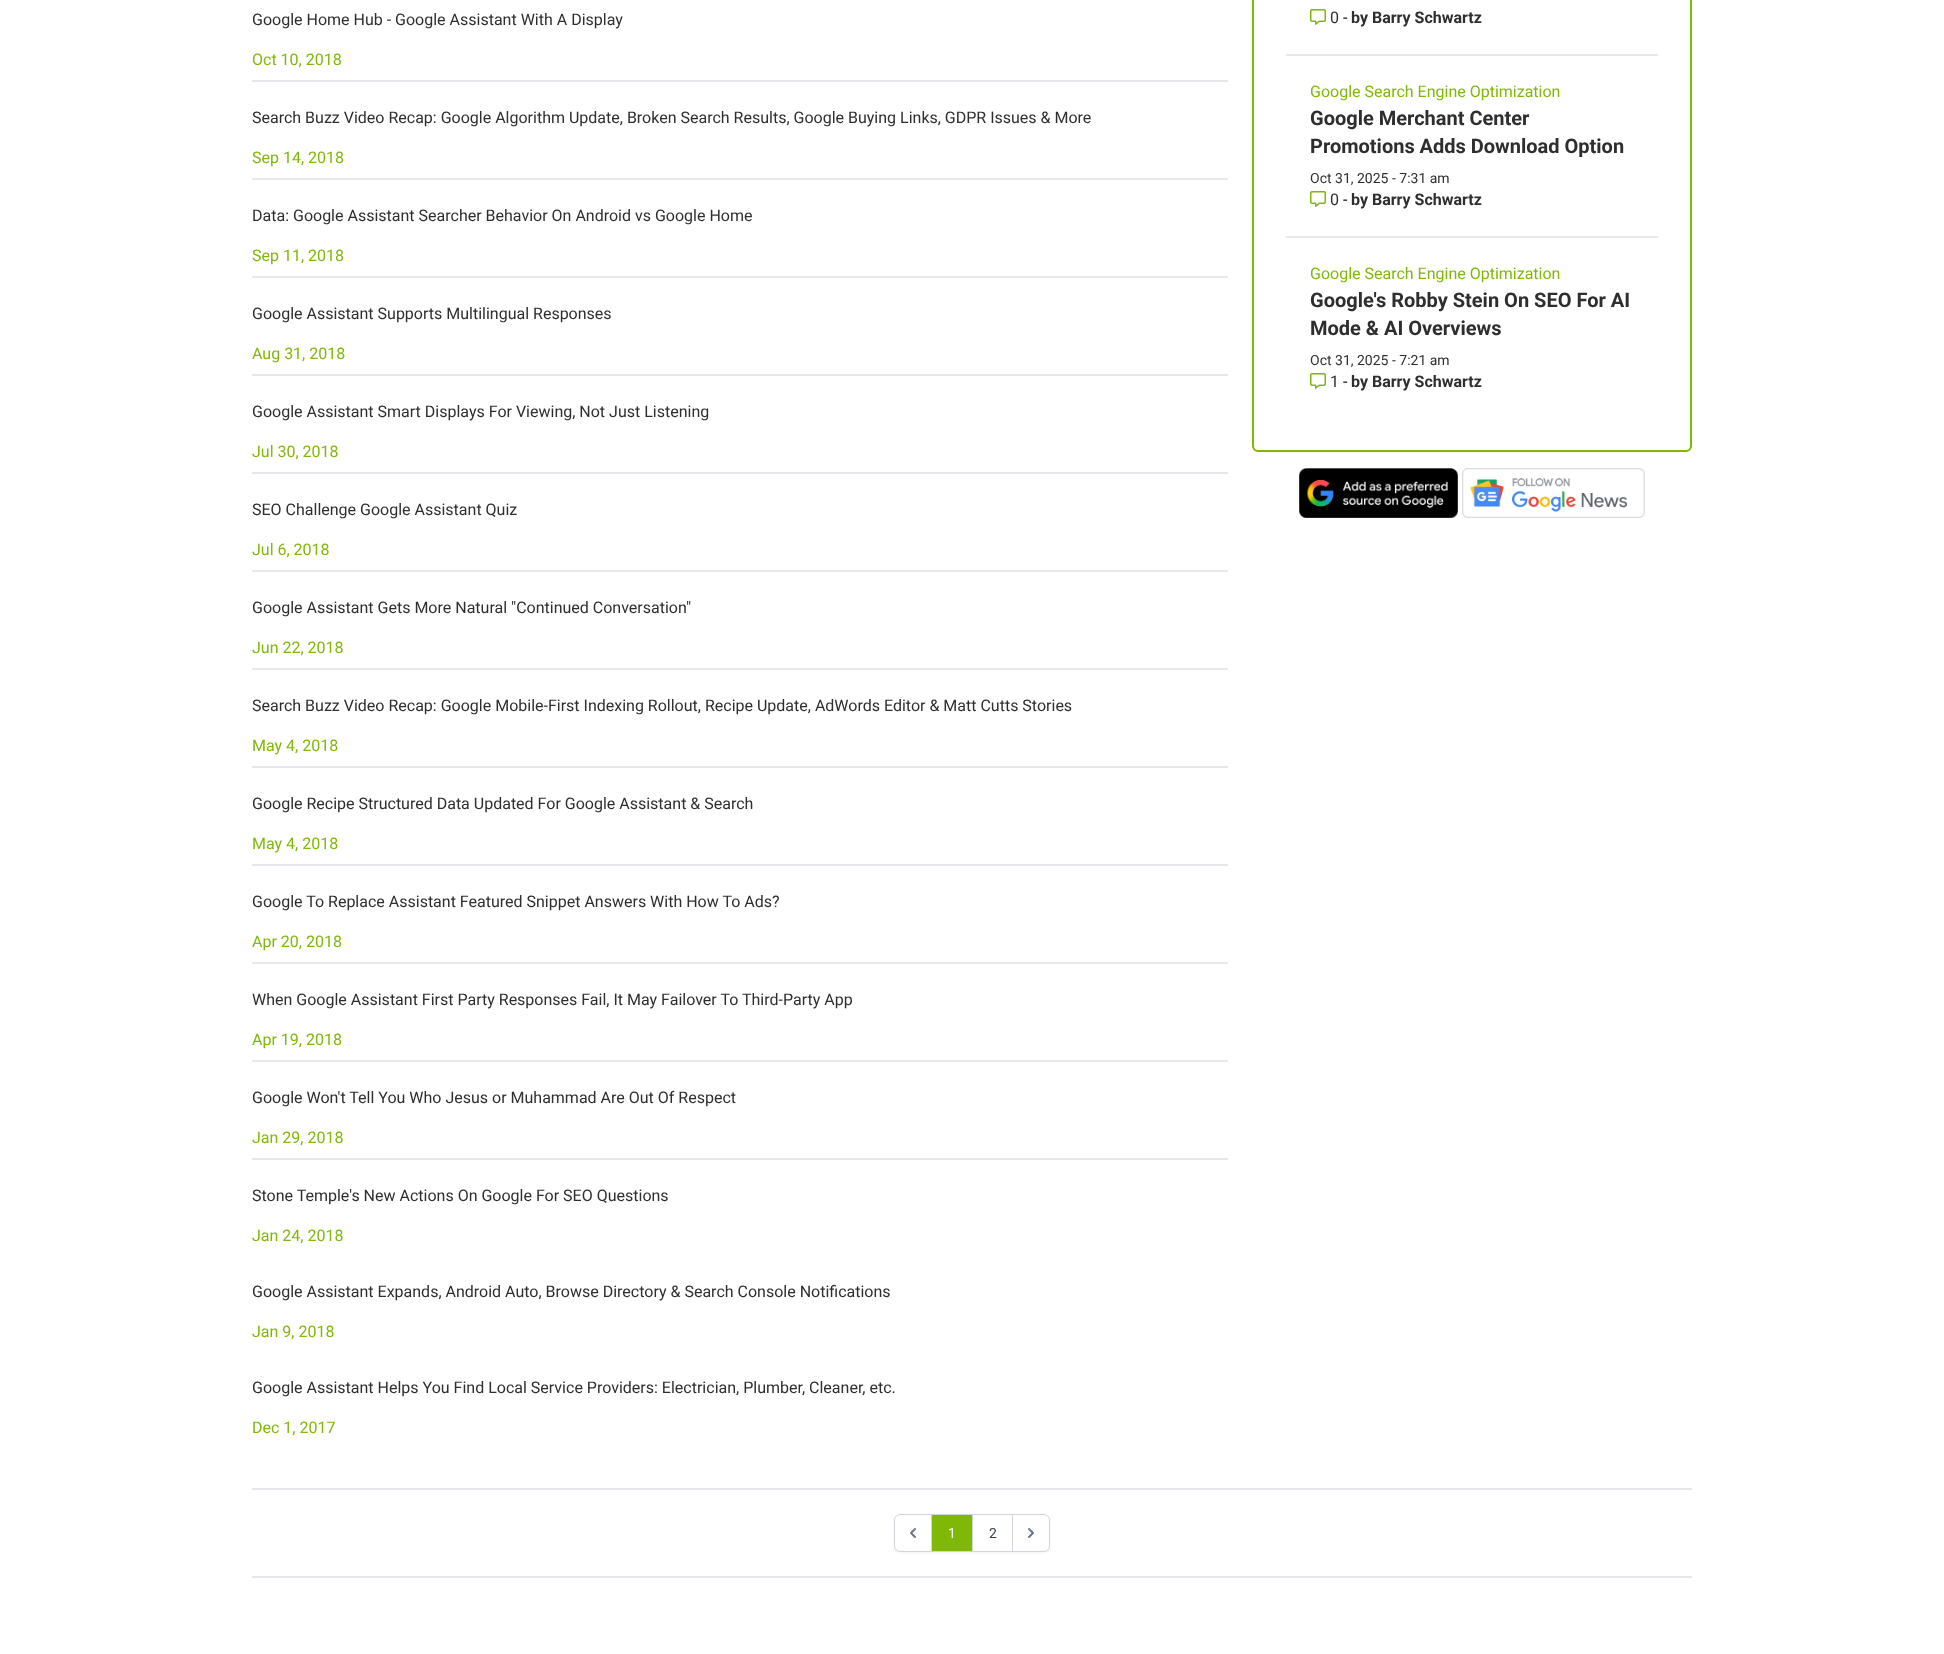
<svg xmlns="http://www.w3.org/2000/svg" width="1944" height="1654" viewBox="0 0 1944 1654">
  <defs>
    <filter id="blur1" x="-50%" y="-200%" width="200%" height="500%"><feGaussianBlur stdDeviation="1"/></filter>
  </defs>
  <rect width="100%" height="100%" fill="#ffffff"/>
  <text x="252" y="25" font-family="Roboto" font-size="16" fill="#2e2e2e">Google Home Hub - Google Assistant With A Display</text>
  <rect x="252" y="80" width="976" height="2" fill="#e5e7eb"/>
  <text x="252" y="65" font-family="Roboto" font-size="16" fill="#7fb806">Oct 10, 2018</text>
  <text x="252" y="123" font-family="Roboto" font-size="16" fill="#2e2e2e">Search Buzz Video Recap: Google Algorithm Update, Broken Search Results, Google Buying Links, GDPR Issues &amp; More</text>
  <rect x="252" y="178" width="976" height="2" fill="#e5e7eb"/>
  <text x="252" y="163" font-family="Roboto" font-size="16" fill="#7fb806">Sep 14, 2018</text>
  <text x="252" y="221" font-family="Roboto" font-size="16" fill="#2e2e2e">Data: Google Assistant Searcher Behavior On Android vs Google Home</text>
  <rect x="252" y="276" width="976" height="2" fill="#e5e7eb"/>
  <text x="252" y="261" font-family="Roboto" font-size="16" fill="#7fb806">Sep 11, 2018</text>
  <text x="252" y="319" font-family="Roboto" font-size="16" fill="#2e2e2e">Google Assistant Supports Multilingual Responses</text>
  <rect x="252" y="374" width="976" height="2" fill="#e5e7eb"/>
  <text x="252" y="359" font-family="Roboto" font-size="16" fill="#7fb806">Aug 31, 2018</text>
  <text x="252" y="417" font-family="Roboto" font-size="16" fill="#2e2e2e">Google Assistant Smart Displays For Viewing, Not Just Listening</text>
  <rect x="252" y="472" width="976" height="2" fill="#e5e7eb"/>
  <text x="252" y="457" font-family="Roboto" font-size="16" fill="#7fb806">Jul 30, 2018</text>
  <text x="252" y="515" font-family="Roboto" font-size="16" fill="#2e2e2e">SEO Challenge Google Assistant Quiz</text>
  <rect x="252" y="570" width="976" height="2" fill="#e5e7eb"/>
  <text x="252" y="555" font-family="Roboto" font-size="16" fill="#7fb806">Jul 6, 2018</text>
  <text x="252" y="613" font-family="Roboto" font-size="16" fill="#2e2e2e">Google Assistant Gets More Natural "Continued Conversation"</text>
  <rect x="252" y="668" width="976" height="2" fill="#e5e7eb"/>
  <text x="252" y="653" font-family="Roboto" font-size="16" fill="#7fb806">Jun 22, 2018</text>
  <text x="252" y="711" font-family="Roboto" font-size="16" fill="#2e2e2e">Search Buzz Video Recap: Google Mobile-First Indexing Rollout, Recipe Update, AdWords Editor &amp; Matt Cutts Stories</text>
  <rect x="252" y="766" width="976" height="2" fill="#e5e7eb"/>
  <text x="252" y="751" font-family="Roboto" font-size="16" fill="#7fb806">May 4, 2018</text>
  <text x="252" y="809" font-family="Roboto" font-size="16" fill="#2e2e2e">Google Recipe Structured Data Updated For Google Assistant &amp; Search</text>
  <rect x="252" y="864" width="976" height="2" fill="#e5e7eb"/>
  <text x="252" y="849" font-family="Roboto" font-size="16" fill="#7fb806">May 4, 2018</text>
  <text x="252" y="907" font-family="Roboto" font-size="16" fill="#2e2e2e">Google To Replace Assistant Featured Snippet Answers With How To Ads?</text>
  <rect x="252" y="962" width="976" height="2" fill="#e5e7eb"/>
  <text x="252" y="947" font-family="Roboto" font-size="16" fill="#7fb806">Apr 20, 2018</text>
  <text x="252" y="1005" font-family="Roboto" font-size="16" fill="#2e2e2e">When Google Assistant First Party Responses Fail, It May Failover To Third-Party App</text>
  <rect x="252" y="1060" width="976" height="2" fill="#e5e7eb"/>
  <text x="252" y="1045" font-family="Roboto" font-size="16" fill="#7fb806">Apr 19, 2018</text>
  <text x="252" y="1103" font-family="Roboto" font-size="16" fill="#2e2e2e">Google Won't Tell You Who Jesus or Muhammad Are Out Of Respect</text>
  <rect x="252" y="1158" width="976" height="2" fill="#e5e7eb"/>
  <text x="252" y="1143" font-family="Roboto" font-size="16" fill="#7fb806">Jan 29, 2018</text>
  <text x="252" y="1201" font-family="Roboto" font-size="16" fill="#2e2e2e">Stone Temple's New Actions On Google For SEO Questions</text>
  <text x="252" y="1241" font-family="Roboto" font-size="16" fill="#7fb806">Jan 24, 2018</text>
  <text x="252" y="1297" font-family="Roboto" font-size="16" fill="#2e2e2e">Google Assistant Expands, Android Auto, Browse Directory &amp; Search Console Notifications</text>
  <text x="252" y="1337" font-family="Roboto" font-size="16" fill="#7fb806">Jan 9, 2018</text>
  <text x="252" y="1393" font-family="Roboto" font-size="16" fill="#2e2e2e">Google Assistant Helps You Find Local Service Providers: Electrician, Plumber, Cleaner, etc.</text>
  <text x="252" y="1433" font-family="Roboto" font-size="16" fill="#7fb806">Dec 1, 2017</text>
  <rect x="1253" y="-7" width="438" height="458" rx="5" fill="none" stroke="#7fb806" stroke-width="2"/>
  <rect x="1286" y="54" width="372" height="2" fill="#e5e7eb"/>
  <image x="1310" y="9" width="16" height="16" href="img1.png"/>
  <text x="1330" y="23" font-family="Roboto" font-size="16" fill="#2e2e2e">0</text>
  <text x="1343" y="23" font-family="Roboto" font-size="16" fill="#000000">-</text>
  <text x="1351" y="23" font-family="Roboto" font-size="16" font-weight="bold" fill="#2e2e2e">by Barry Schwartz</text>
  <rect x="1286" y="236" width="372" height="2" fill="#e5e7eb"/>
  <text x="1310" y="97" font-family="Roboto" font-size="16" fill="#7fb806">Google Search Engine Optimization</text>
  <text x="1310" y="125" font-family="Roboto" font-size="20" font-weight="bold" fill="#2e2e2e">Google Merchant Center</text>
  <text x="1310" y="153" font-family="Roboto" font-size="20" font-weight="bold" fill="#2e2e2e">Promotions Adds Download Option</text>
  <text x="1310" y="183" font-family="Roboto" font-size="14" fill="#2e2e2e">Oct 31, 2025 - 7:31 am</text>
  <image x="1310" y="191" width="16" height="16" href="img1.png"/>
  <text x="1330" y="205" font-family="Roboto" font-size="16" fill="#2e2e2e">0</text>
  <text x="1343" y="205" font-family="Roboto" font-size="16" fill="#000000">-</text>
  <text x="1351" y="205" font-family="Roboto" font-size="16" font-weight="bold" fill="#2e2e2e">by Barry Schwartz</text>
  <text x="1310" y="279" font-family="Roboto" font-size="16" fill="#7fb806">Google Search Engine Optimization</text>
  <text x="1310" y="307" font-family="Roboto" font-size="20" font-weight="bold" fill="#2e2e2e">Google's Robby Stein On SEO For AI</text>
  <text x="1310" y="335" font-family="Roboto" font-size="20" font-weight="bold" fill="#2e2e2e">Mode &amp; AI Overviews</text>
  <text x="1310" y="365" font-family="Roboto" font-size="14" fill="#2e2e2e">Oct 31, 2025 - 7:21 am</text>
  <image x="1310" y="373" width="16" height="16" href="img1.png"/>
  <text x="1330" y="387" font-family="Roboto" font-size="16" fill="#2e2e2e">1</text>
  <text x="1343" y="387" font-family="Roboto" font-size="16" fill="#000000">-</text>
  <text x="1351" y="387" font-family="Roboto" font-size="16" font-weight="bold" fill="#2e2e2e">by Barry Schwartz</text>
  <image x="1299" y="468" width="159" height="50" href="img2.png"/>
  <image x="1462" y="468" width="183" height="50" href="img3.png"/>
  <rect x="252" y="1488" width="1440" height="2" fill="#e5e7eb"/>
  <rect x="252" y="1576" width="1440" height="2" fill="#e5e7eb"/>
  <rect x="894" y="1515" width="156" height="38" rx="6" fill="#000000" fill-opacity="0.05" filter="url(#blur1)"/>
  <path d="M900 1514.5H931.5V1551.5H900C897 1551.5 894.5 1549 894.5 1546V1520C894.5 1517 897 1514.5 900 1514.5Z" fill="#ffffff" stroke="#d1d5db"/>
  <image x="910" y="1528" width="6" height="10" href="img4.png"/>
  <rect x="931.5" y="1514.5" width="41" height="37" fill="#7fb806" stroke="#d1d5db"/>
  <text x="948" y="1538" font-family="Roboto" font-size="14" fill="#ffffff">1</text>
  <rect x="972.5" y="1514.5" width="40" height="37" fill="#ffffff" stroke="#d1d5db"/>
  <text x="989" y="1538" font-family="Roboto" font-size="14" fill="#374151">2</text>
  <path d="M1012.5 1514.5H1044C1047 1514.5 1049.5 1517 1049.5 1520V1546C1049.5 1549 1047 1551.5 1044 1551.5H1012.5Z" fill="#ffffff" stroke="#d1d5db"/>
  <image x="1028" y="1528" width="6" height="10" href="img5.png"/>
</svg>
